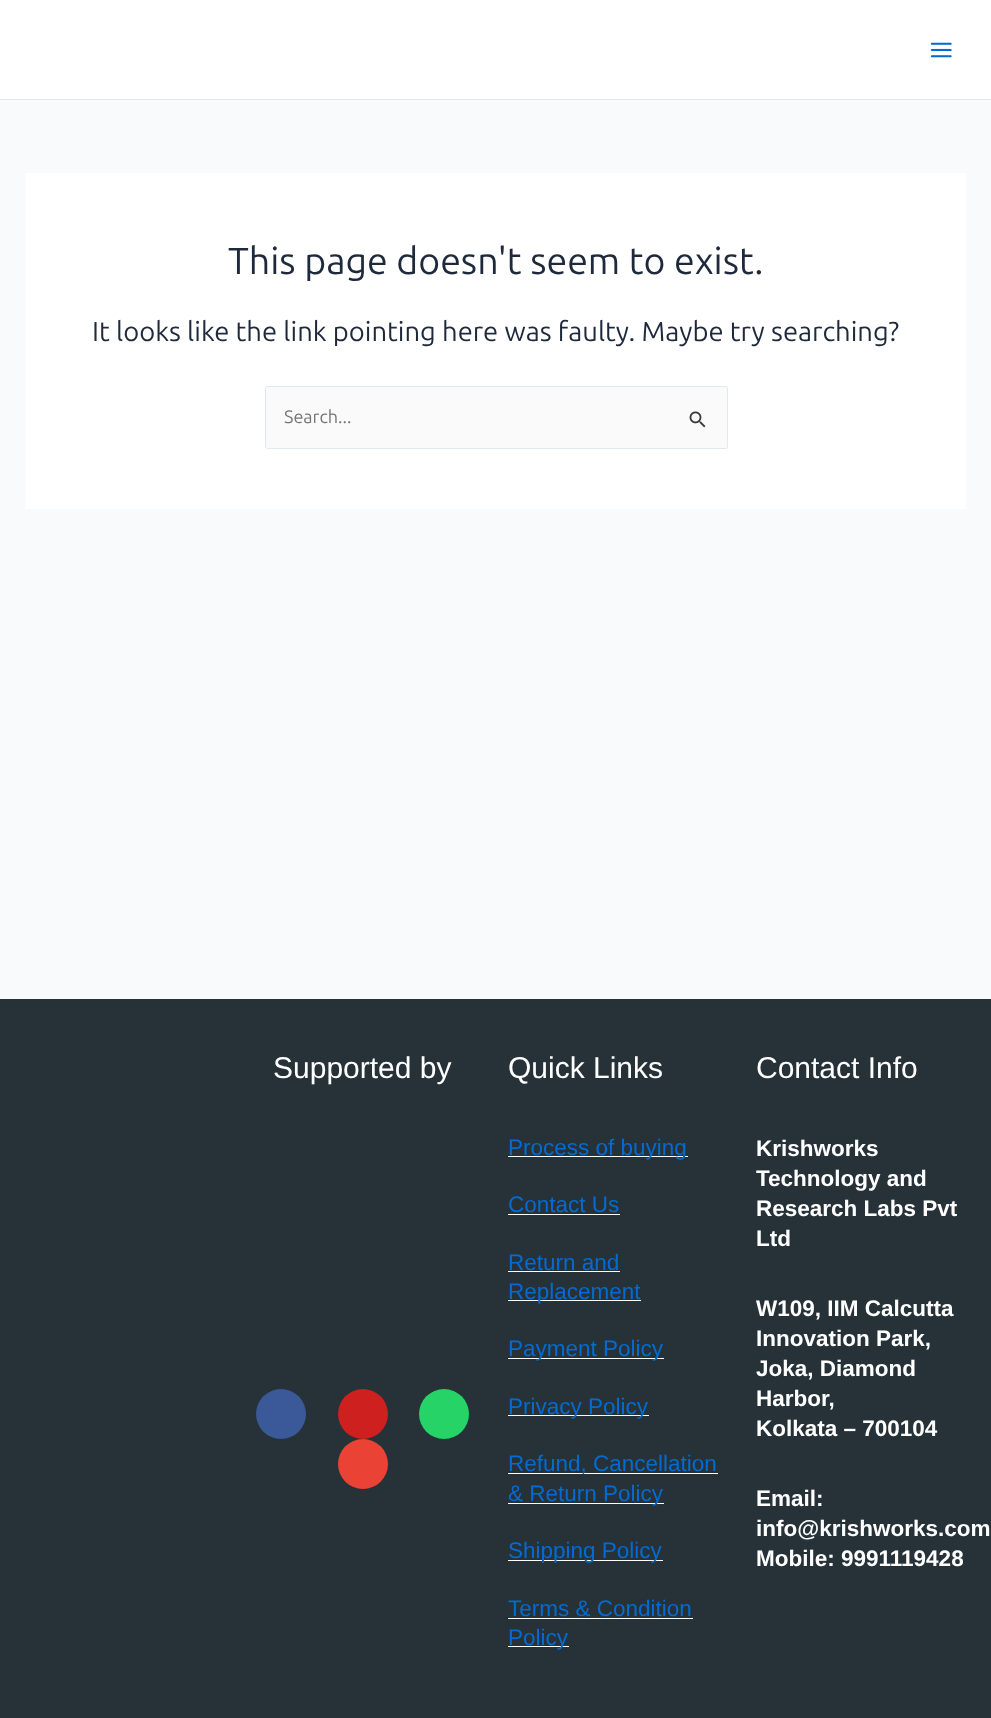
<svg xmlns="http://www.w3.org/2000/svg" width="991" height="1718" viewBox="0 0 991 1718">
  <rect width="100%" height="100%" fill="#f9fafb"/>
  <rect x="0" y="0" width="991" height="99" fill="#ffffff"/>
  <rect x="0" y="99" width="991" height="1" fill="#e2e8f0"/>
  <image x="930" y="42" width="22" height="16" href="img1.png"/>
  <rect x="25" y="173" width="941" height="336" fill="#ffffff"/>
  <text x="228" y="274" font-family="Ubuntu" font-size="37.5" fill="#1e293b">This page doesn't seem to exist.</text>
  <text x="92" y="341" font-family="Ubuntu" font-size="27.35" fill="#1e293b">It looks like the link pointing here was faulty. Maybe try searching?</text>
  <rect x="265.5" y="386.5" width="462" height="62" rx="2" fill="#fafafa" stroke="#e2e8f0"/>
  <text x="284" y="423" font-family="Ubuntu" font-size="18" fill="#757575">Search...</text>
  <image x="689" y="411" width="17" height="17" href="img2.png"/>
  <rect x="0" y="999" width="991" height="719" fill="#263238"/>
  <text x="273" y="1078" font-family="Liberation Sans" font-size="30" fill="#ffffff">Supported by</text>
  <circle cx="281" cy="1414" r="25" fill="#3b5998"/>
  <circle cx="363" cy="1414" r="25" fill="#cd201f"/>
  <circle cx="444" cy="1414" r="25" fill="#25d366"/>
  <circle cx="363" cy="1464" r="25" fill="#ea4335"/>
  <text x="508" y="1078" font-family="Liberation Sans" font-size="30" fill="#ffffff">Quick Links</text>
  <rect x="508" y="1156" width="180" height="1" fill="#ffffff"/>
  <text x="508" y="1155" font-family="Liberation Sans" font-size="22.5" fill="#046bd2">Process of buying</text>
  <text x="508" y="1212" font-family="Liberation Sans" font-size="22.5" fill="#046bd2">Contact Us</text>
  <rect x="508" y="1214" width="112" height="1" fill="#ffffff"/>
  <text x="508" y="1270" font-family="Liberation Sans" font-size="22.5" fill="#046bd2">Return and</text>
  <rect x="508" y="1271" width="112" height="1" fill="#ffffff"/>
  <rect x="508" y="1300" width="133" height="1" fill="#ffffff"/>
  <text x="508" y="1299" font-family="Liberation Sans" font-size="22.5" fill="#046bd2">Replacement</text>
  <rect x="508" y="1358" width="156" height="1" fill="#ffffff"/>
  <text x="508" y="1356" font-family="Liberation Sans" font-size="22.5" fill="#046bd2">Payment Policy</text>
  <rect x="508" y="1415" width="141" height="1" fill="#ffffff"/>
  <text x="508" y="1414" font-family="Liberation Sans" font-size="22.5" fill="#046bd2">Privacy Policy</text>
  <rect x="508" y="1473" width="210" height="1" fill="#ffffff"/>
  <text x="508" y="1471" font-family="Liberation Sans" font-size="22.5" fill="#046bd2">Refund, Cancellation</text>
  <rect x="508" y="1503" width="156" height="1" fill="#ffffff"/>
  <text x="508" y="1501" font-family="Liberation Sans" font-size="22.5" fill="#046bd2">&amp; Return Policy</text>
  <rect x="508" y="1560" width="155" height="1" fill="#ffffff"/>
  <text x="508" y="1558" font-family="Liberation Sans" font-size="22.5" fill="#046bd2">Shipping Policy</text>
  <text x="508" y="1616" font-family="Liberation Sans" font-size="22.5" fill="#046bd2">Terms &amp; Condition</text>
  <rect x="508" y="1618" width="185" height="1" fill="#ffffff"/>
  <rect x="508" y="1646" width="61" height="1" fill="#ffffff"/>
  <text x="508" y="1645" font-family="Liberation Sans" font-size="22.5" fill="#046bd2">Policy</text>
  <text x="756" y="1078" font-family="Liberation Sans" font-size="30" fill="#ffffff">Contact Info</text>
  <text x="756" y="1156" font-family="Liberation Sans" font-size="22.5" font-weight="bold" fill="#ffffff">Krishworks</text>
  <text x="756" y="1186" font-family="Liberation Sans" font-size="22.5" font-weight="bold" fill="#ffffff">Technology and</text>
  <text x="756" y="1216" font-family="Liberation Sans" font-size="22.5" font-weight="bold" fill="#ffffff">Research Labs Pvt</text>
  <text x="756" y="1246" font-family="Liberation Sans" font-size="22.5" font-weight="bold" fill="#ffffff">Ltd</text>
  <text x="756" y="1316" font-family="Liberation Sans" font-size="22.5" font-weight="bold" fill="#ffffff">W109, IIM Calcutta</text>
  <text x="756" y="1346" font-family="Liberation Sans" font-size="22.5" font-weight="bold" fill="#ffffff">Innovation Park,</text>
  <text x="756" y="1376" font-family="Liberation Sans" font-size="22.5" font-weight="bold" fill="#ffffff">Joka, Diamond</text>
  <text x="756" y="1406" font-family="Liberation Sans" font-size="22.5" font-weight="bold" fill="#ffffff">Harbor,</text>
  <text x="756" y="1436" font-family="Liberation Sans" font-size="22.5" font-weight="bold" fill="#ffffff">Kolkata – 700104</text>
  <text x="756" y="1506" font-family="Liberation Sans" font-size="22.5" font-weight="bold" fill="#ffffff">Email:</text>
  <text x="756" y="1536" font-family="Liberation Sans" font-size="22.5" font-weight="bold" fill="#ffffff">info@krishworks.com</text>
  <text x="756" y="1566" font-family="Liberation Sans" font-size="22.5" font-weight="bold" fill="#ffffff">Mobile: 9991119428</text>
</svg>
